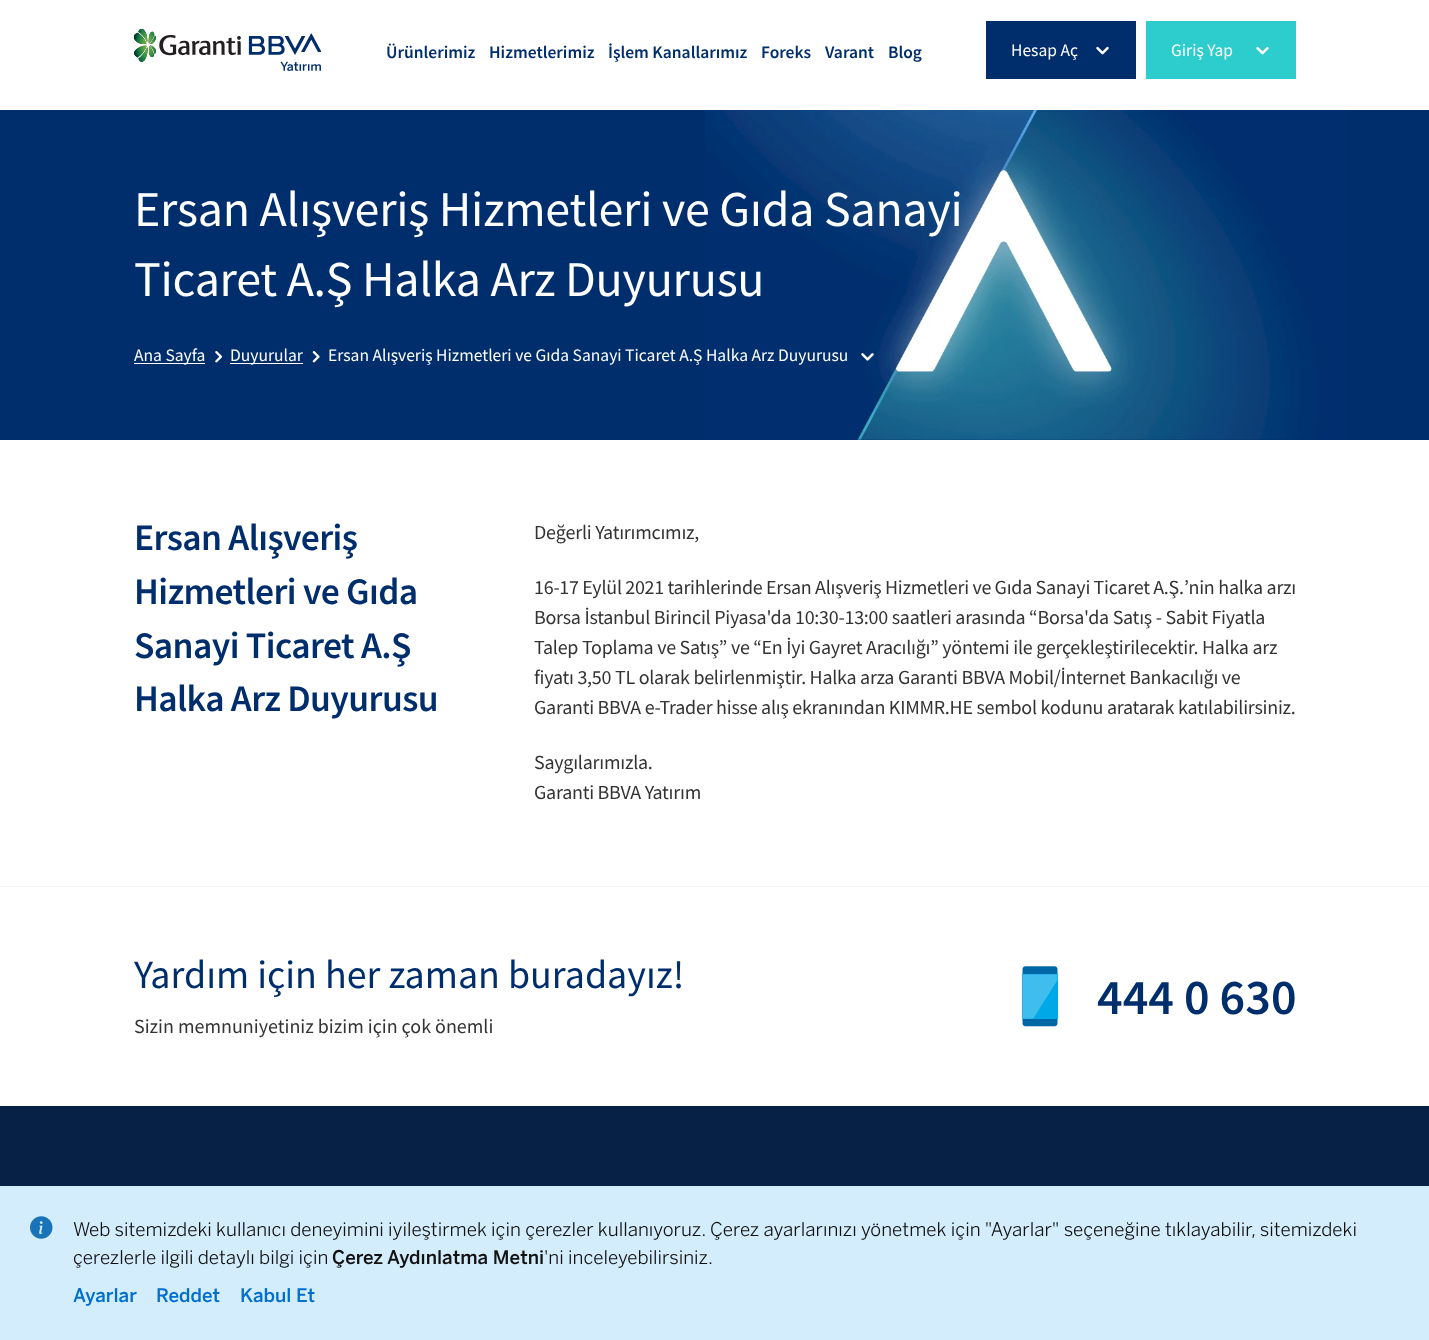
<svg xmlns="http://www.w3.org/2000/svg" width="1429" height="1340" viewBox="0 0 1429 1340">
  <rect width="100%" height="100%" fill="#ffffff"/>
  <image x="134" y="29" width="187" height="42" href="img1.png"/>
  <text x="386" y="58" font-family="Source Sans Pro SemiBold" font-size="17.5" font-weight="600" fill="#002e6d">Ürünlerimiz</text>
  <text x="489" y="58" font-family="Source Sans Pro SemiBold" font-size="17.5" font-weight="600" fill="#002e6d">Hizmetlerimiz</text>
  <text x="608" y="58" font-family="Source Sans Pro SemiBold" font-size="17.5" font-weight="600" fill="#002e6d">İşlem Kanallarımız</text>
  <text x="761" y="58" font-family="Source Sans Pro SemiBold" font-size="17.5" font-weight="600" fill="#002e6d">Foreks</text>
  <text x="825" y="58" font-family="Source Sans Pro SemiBold" font-size="17.5" font-weight="600" fill="#002e6d">Varant</text>
  <text x="888" y="58" font-family="Source Sans Pro SemiBold" font-size="17.5" font-weight="600" fill="#002e6d">Blog</text>
  <rect x="986" y="21" width="150" height="58" fill="#002e6d"/>
  <text x="1011" y="56" font-family="Source Sans Pro" font-size="17.5" fill="#ffffff">Hesap Aç</text>
  <image x="1096" y="46" width="13" height="9" href="img2.png"/>
  <rect x="1146" y="21" width="150" height="58" fill="#2dcccd"/>
  <text x="1171" y="56" font-family="Source Sans Pro" font-size="17.5" fill="#ffffff">Giriş Yap</text>
  <image x="1256" y="46" width="13" height="9" href="img3.png"/>
  <rect x="0" y="110" width="1429" height="330" fill="#002e6d"/>
  <image x="705" y="110" width="644" height="330" href="img7.png"/>
  <text x="134" y="226" font-family="Source Sans Pro" font-size="50" letter-spacing="-0.25" fill="#ffffff">Ersan Alışveriş Hizmetleri ve Gıda Sanayi</text>
  <text x="134" y="296" font-family="Source Sans Pro" font-size="50" letter-spacing="-0.25" fill="#ffffff">Ticaret A.Ş Halka Arz Duyurusu</text>
  <rect x="134" y="363" width="71" height="1" fill="#ffffff"/>
  <text x="134" y="361" font-family="Source Sans Pro" font-size="17.5" fill="#ffffff">Ana Sayfa</text>
  <image x="215" y="351" width="8" height="12" href="img4.png"/>
  <rect x="230" y="363" width="73" height="1" fill="#ffffff"/>
  <text x="230" y="361" font-family="Source Sans Pro" font-size="17.5" fill="#ffffff">Duyurular</text>
  <image x="312" y="351" width="8" height="12" href="img5.png"/>
  <text x="328" y="361" font-family="Source Sans Pro" font-size="17.5" fill="#ffffff">Ersan Alışveriş Hizmetleri ve Gıda Sanayi Ticaret A.Ş Halka Arz Duyurusu</text>
  <image x="861" y="353" width="13" height="8" href="img6.png"/>
  <text x="134" y="550" font-family="Source Sans Pro SemiBold" font-size="37.5" font-weight="600" letter-spacing="-0.6" fill="#002e6d">Ersan Alışveriş</text>
  <text x="134" y="604" font-family="Source Sans Pro SemiBold" font-size="37.5" font-weight="600" letter-spacing="-0.6" fill="#002e6d">Hizmetleri ve Gıda</text>
  <text x="134" y="658" font-family="Source Sans Pro SemiBold" font-size="37.5" font-weight="600" letter-spacing="-0.6" fill="#002e6d">Sanayi Ticaret A.Ş</text>
  <text x="134" y="711" font-family="Source Sans Pro SemiBold" font-size="37.5" font-weight="600" letter-spacing="-0.6" fill="#002e6d">Halka Arz Duyurusu</text>
  <text x="534" y="539" font-family="Source Sans Pro" font-size="20" letter-spacing="-0.25" fill="#333333">Değerli Yatırımcımız,</text>
  <text x="534" y="594" word-spacing="-0.25" font-family="Source Sans Pro" font-size="20" letter-spacing="-0.25" fill="#333333">16-17 Eylül 2021 tarihlerinde Ersan Alışveriş Hizmetleri ve Gıda Sanayi Ticaret A.Ş.</text>
  <text x="1184" y="594" font-family="Source Sans Pro" font-size="20" letter-spacing="-0.25" fill="#333333">’nin halka arzı</text>
  <text x="534" y="624" font-family="Source Sans Pro" font-size="20" letter-spacing="-0.25" fill="#333333">Borsa İstanbul Birincil Piyasa'da 10:30-13:00 saatleri arasında “Borsa'da Satış - Sabit Fiyatla</text>
  <text x="534" y="654" font-family="Source Sans Pro" font-size="20" letter-spacing="-0.25" fill="#333333">Talep Toplama ve Satış” ve “En İyi Gayret Aracılığı” yöntemi ile gerçekleştirilecektir. Halka arz</text>
  <text x="534" y="684" font-family="Source Sans Pro" font-size="20" letter-spacing="-0.25" fill="#333333">fiyatı 3,50 TL olarak belirlenmiştir. Halka arza Garanti BBVA Mobil/İnternet Bankacılığı ve</text>
  <text x="534" y="714" font-family="Source Sans Pro" font-size="20" letter-spacing="-0.25" fill="#333333">Garanti BBVA e-Trader hisse alış ekranından KIMMR.HE sembol kodunu aratarak katılabilirsiniz.</text>
  <text x="534" y="769" font-family="Source Sans Pro" font-size="20" letter-spacing="-0.25" fill="#333333">Saygılarımızla.</text>
  <text x="534" y="799" font-family="Source Sans Pro" font-size="20" letter-spacing="-0.25" fill="#333333">Garanti BBVA Yatırım</text>
  <rect x="0" y="886" width="1429" height="1" fill="#f5f5f5"/>
  <text x="134" y="988" font-family="Source Sans Pro" font-size="40" fill="#002e6d">Yardım için her zaman buradayız!</text>
  <text x="134" y="1033" font-family="Source Sans Pro" font-size="20" fill="#333333">Sizin memnuniyetiniz bizim için çok önemli</text>
  <image x="1022" y="966" width="36" height="61" href="img8.png"/>
  <text x="1097" y="1014" font-family="Source Sans Pro SemiBold" font-size="50" font-weight="600" fill="#002e6d">444 0 630</text>
  <rect x="0" y="1106" width="1429" height="80" fill="#072146"/>
  <rect x="0" y="1186" width="1429" height="154" fill="#d4edfc"/>
  <image x="30" y="1216" width="23" height="23" href="img9.png"/>
  <text x="73" y="1236" font-family="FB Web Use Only" font-size="18.75" font-weight="300" fill="#121212">Web sitemizdeki kullanıcı deneyimini iyileştirmek için çerezler kullanıyoruz. Çerez ayarlarınızı yönetmek için "Ayarlar" seçeneğine tıklayabilir, sitemizdeki</text>
  <text x="73" y="1264" font-family="FB Web Use Only" font-size="18.75" font-weight="300" fill="#121212">çerezlerle ilgili detaylı bilgi için</text>
  <text x="332" y="1264" font-family="FB Web Use Only" font-size="18.75" font-weight="500" fill="#121212">Çerez Aydınlatma Metni</text>
  <text x="544" y="1264" font-family="FB Web Use Only" font-size="18.75" font-weight="300" fill="#121212">'ni inceleyebilirsiniz.</text>
  <text x="73" y="1302" font-family="FB Web Use Only" font-size="18.75" font-weight="500" fill="#006fcf">Ayarlar</text>
  <text x="156" y="1302" font-family="FB Web Use Only" font-size="18.75" font-weight="500" fill="#006fcf">Reddet</text>
  <text x="240" y="1302" font-family="FB Web Use Only" font-size="18.75" font-weight="500" fill="#006fcf">Kabul Et</text>
</svg>
